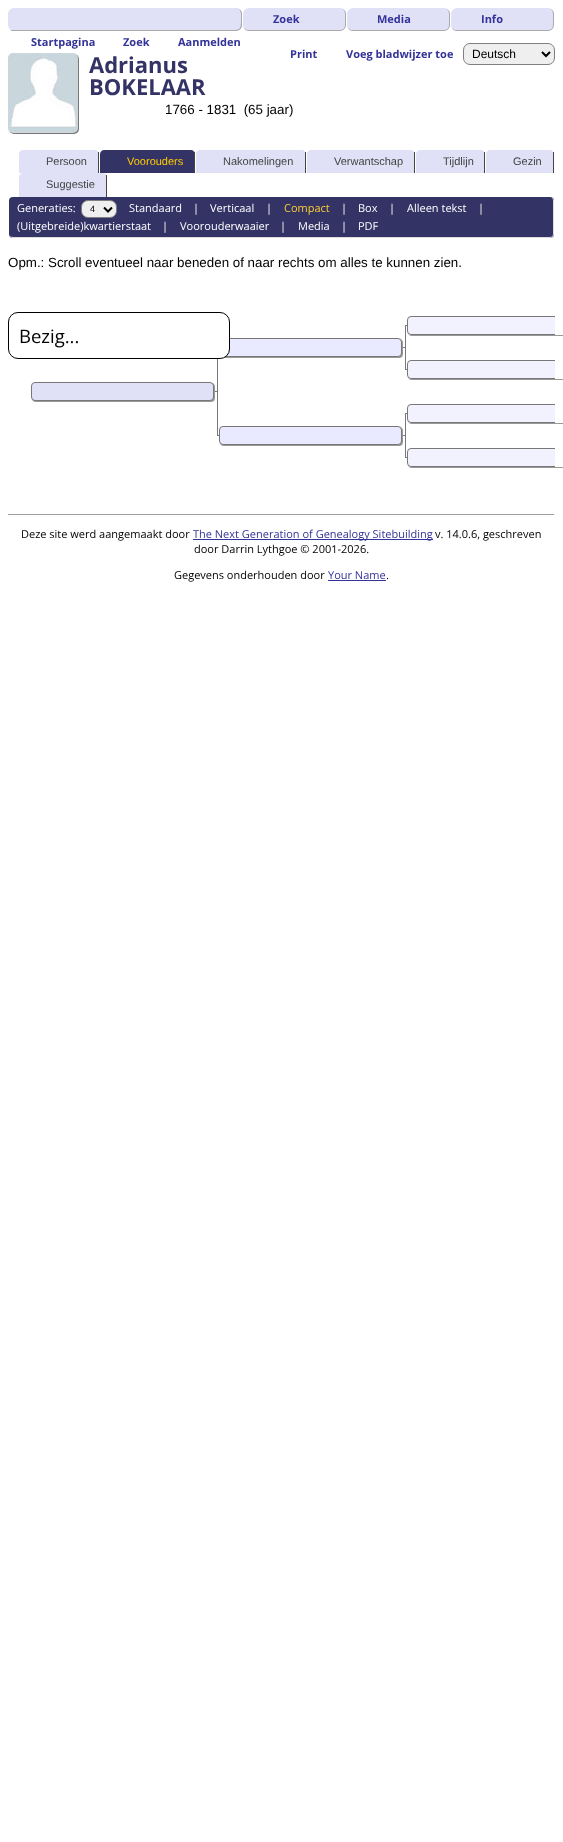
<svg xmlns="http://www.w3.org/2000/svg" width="563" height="1842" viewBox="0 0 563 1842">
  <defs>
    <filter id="blur1" x="-50%" y="-200%" width="200%" height="500%"><feGaussianBlur stdDeviation="0.5"/></filter>
    <clipPath id="clip1"><path d="M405 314H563V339H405ZM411 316H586C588 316 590 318 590 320V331C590 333 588 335 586 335H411C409 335 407 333 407 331V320C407 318 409 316 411 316Z" clip-rule="evenodd"/></clipPath>
    <clipPath id="clip2"><rect x="8" y="305" width="547" height="193"/></clipPath>
    <clipPath id="clip3"><path d="M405 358H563V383H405ZM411 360H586C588 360 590 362 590 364V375C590 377 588 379 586 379H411C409 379 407 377 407 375V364C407 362 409 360 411 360Z" clip-rule="evenodd"/></clipPath>
    <clipPath id="clip4"><path d="M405 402H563V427H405ZM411 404H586C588 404 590 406 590 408V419C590 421 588 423 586 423H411C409 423 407 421 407 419V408C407 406 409 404 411 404Z" clip-rule="evenodd"/></clipPath>
    <clipPath id="clip5"><path d="M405 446H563V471H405ZM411 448H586C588 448 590 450 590 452V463C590 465 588 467 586 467H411C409 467 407 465 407 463V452C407 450 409 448 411 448Z" clip-rule="evenodd"/></clipPath>
  </defs>
  <rect width="100%" height="100%" fill="#ffffff"/>
  <rect x="8" y="8" width="547" height="23" rx="6" fill="#e0e0f7"/>
  <rect x="11" y="30" width="220" height="1" fill="#aaaaaa"/>
  <rect x="236" y="8" width="319" height="23" fill="#ffffff"/>
  <path d="M231 8H236C239.5 8 242 10.5 242 14V25C242 28.5 239.5 31 236 31H231Z" fill="#e0e0f7"/>
  <path d="M231 8C235 8 241 7.5 242 13V26C241 31.5 235 31 231 31ZM231 8H237C242 9.5 241 16 241 19.5C241 29.5 240.5 30 231 30Z" fill="#aaaaaa" fill-rule="evenodd"/>
  <rect x="243" y="8" width="103" height="23" rx="6" fill="#e0e0f7"/>
  <path d="M249 8H340C343 8 346 11 346 14V25C346 28 343 31 340 31H249C246 31 243 28 243 25V14C243 11 246 8 249 8ZM249 8H340C343 8 345 11 345 14V25C345 28 343 30 340 30H249C246 30 243 28 243 25V14C243 11 246 8 249 8Z" fill="#aaaaaa" fill-rule="evenodd"/>
  <text x="273" y="23" font-family="Open Sans" font-size="11" font-weight="bold" fill="#333399">Zoek</text>
  <rect x="347" y="8" width="103" height="23" rx="6" fill="#e0e0f7"/>
  <path d="M353 8H444C447 8 450 11 450 14V25C450 28 447 31 444 31H353C350 31 347 28 347 25V14C347 11 350 8 353 8ZM353 8H444C447 8 449 11 449 14V25C449 28 447 30 444 30H353C350 30 347 28 347 25V14C347 11 350 8 353 8Z" fill="#aaaaaa" fill-rule="evenodd"/>
  <text x="377" y="23" font-family="Open Sans" font-size="11" font-weight="bold" fill="#333399">Media</text>
  <rect x="451" y="8" width="103" height="23" rx="6" fill="#e0e0f7"/>
  <path d="M457 8H548C551 8 554 11 554 14V25C554 28 551 31 548 31H457C454 31 451 28 451 25V14C451 11 454 8 457 8ZM457 8H548C551 8 553 11 553 14V25C553 28 551 30 548 30H457C454 30 451 28 451 25V14C451 11 454 8 457 8Z" fill="#aaaaaa" fill-rule="evenodd"/>
  <text x="481" y="23" font-family="Open Sans" font-size="11" font-weight="bold" fill="#333399">Info</text>
  <text x="31" y="46" font-family="Open Sans" font-size="11" font-weight="bold" fill="#333399">Startpagina</text>
  <text x="123" y="46" font-family="Open Sans" font-size="11" font-weight="bold" fill="#333399">Zoek</text>
  <text x="178" y="46" font-family="Open Sans" font-size="11" font-weight="bold" fill="#333399">Aanmelden</text>
  <rect x="9" y="54" width="70" height="80" rx="5" fill="#777777" filter="url(#blur1)"/>
  <image x="8" y="53" width="70" height="80" href="img1.png"/>
  <text x="89" y="73" font-family="Open Sans" font-size="22" font-weight="bold" fill="#333366">Adrianus</text>
  <text x="89" y="95" font-family="Open Sans" font-size="22" font-weight="bold" fill="#333366">BOKELAAR</text>
  <text x="290" y="58" font-family="Open Sans" font-size="11" font-weight="bold" fill="#333399">Print</text>
  <text x="346" y="58" font-family="Open Sans" font-size="11" font-weight="bold" fill="#333399">Voeg bladwijzer toe</text>
  <rect x="463.5" y="43.5" width="91" height="21" rx="6.5" fill="#efefef" stroke="#808080"/>
  <path d="M542 52L546 56L550 52" fill="none" stroke="#000000" stroke-width="2"/>
  <text x="472" y="58" font-family="Liberation Sans" font-size="12" fill="#000000">Deutsch</text>
  <text x="165" y="114" font-family="Liberation Sans" font-size="13.35" fill="#000000" xml:space="preserve">1766 - 1831  (65 jaar)</text>
  <path d="M23 150H95C97 150 99 152 99 154V173H19V154C19 152 21 150 23 150Z" fill="#e0e0f7"/>
  <rect x="98" y="152" width="1" height="21" fill="#444444"/>
  <text x="46" y="165" font-family="Liberation Sans" font-size="11" fill="#444444">Persoon</text>
  <path d="M104 150H191C193 150 195 152 195 154V173H100V154C100 152 102 150 104 150Z" fill="#333366"/>
  <rect x="194" y="152" width="1" height="21" fill="#444444"/>
  <text x="127" y="165" font-family="Liberation Sans" font-size="11" fill="#ffcc00">Voorouders</text>
  <path d="M200 150H302C304 150 306 152 306 154V173H196V154C196 152 198 150 200 150Z" fill="#e0e0f7"/>
  <rect x="305" y="152" width="1" height="21" fill="#444444"/>
  <text x="223" y="165" font-family="Liberation Sans" font-size="11" fill="#444444">Nakomelingen</text>
  <path d="M311 150H411C413 150 415 152 415 154V173H307V154C307 152 309 150 311 150Z" fill="#e0e0f7"/>
  <rect x="414" y="152" width="1" height="21" fill="#444444"/>
  <text x="334" y="165" font-family="Liberation Sans" font-size="11" fill="#444444">Verwantschap</text>
  <path d="M420 150H481C483 150 485 152 485 154V173H416V154C416 152 418 150 420 150Z" fill="#e0e0f7"/>
  <rect x="484" y="152" width="1" height="21" fill="#444444"/>
  <text x="443" y="165" font-family="Liberation Sans" font-size="11" fill="#444444">Tijdlijn</text>
  <path d="M490 150H550C552 150 554 152 554 154V173H486V154C486 152 488 150 490 150Z" fill="#e0e0f7"/>
  <rect x="553" y="152" width="1" height="21" fill="#444444"/>
  <text x="513" y="165" font-family="Liberation Sans" font-size="11" fill="#444444">Gezin</text>
  <path d="M23 173H103C105 173 107 175 107 177V197H19V177C19 175 21 173 23 173Z" fill="#e0e0f7"/>
  <rect x="106" y="175" width="1" height="22" fill="#444444"/>
  <text x="46" y="188" font-family="Liberation Sans" font-size="11" fill="#444444">Suggestie</text>
  <rect x="9" y="197" width="545" height="41" rx="4" fill="#333366"/>
  <path d="M13 197H550C552 197 554 199 554 201V234C554 236 552 238 550 238H13C11 238 9 236 9 234V201C9 199 11 197 13 197ZM13 197H550C552 197 553 199 553 201V234C553 236 552 237 550 237H13C11 237 9 236 9 234V201C9 199 11 197 13 197Z" fill="#dddddd" fill-rule="evenodd"/>
  <text x="17" y="212" font-family="Open Sans" font-size="11" fill="#ffffff">Generaties:</text>
  <rect x="81.5" y="200.5" width="35" height="17" rx="6.5" fill="#efefef" stroke="#808080"/>
  <path d="M104 207.5L108 211.5L112 207.5" fill="none" stroke="#000000" stroke-width="2"/>
  <text x="90" y="212" font-family="Liberation Sans" font-size="9" fill="#000000">4</text>
  <text x="129" y="212" font-family="Open Sans" font-size="11" fill="#ffffff">Standaard</text>
  <text x="193" y="212" font-family="Open Sans" font-size="11" fill="#ffffff">|</text>
  <text x="210" y="212" font-family="Open Sans" font-size="11" fill="#ffffff">Verticaal</text>
  <text x="266" y="212" font-family="Open Sans" font-size="11" fill="#ffffff">|</text>
  <text x="284" y="212" font-family="Open Sans" font-size="11" fill="#ffcc33">Compact</text>
  <text x="341" y="212" font-family="Open Sans" font-size="11" fill="#ffffff">|</text>
  <text x="358" y="212" font-family="Open Sans" font-size="11" fill="#ffffff">Box</text>
  <text x="389" y="212" font-family="Open Sans" font-size="11" fill="#ffffff">|</text>
  <text x="407" y="212" font-family="Open Sans" font-size="11" fill="#ffffff">Alleen tekst</text>
  <text x="478" y="212" font-family="Open Sans" font-size="11" fill="#ffffff">|</text>
  <text x="17" y="230" font-family="Open Sans" font-size="11" fill="#ffffff">(Uitgebreide)kwartierstaat</text>
  <text x="162" y="230" font-family="Open Sans" font-size="11" fill="#ffffff">|</text>
  <text x="180" y="230" font-family="Open Sans" font-size="11" fill="#ffffff">Voorouderwaaier</text>
  <text x="280" y="230" font-family="Open Sans" font-size="11" fill="#ffffff">|</text>
  <text x="298" y="230" font-family="Open Sans" font-size="11" fill="#ffffff">Media</text>
  <text x="341" y="230" font-family="Open Sans" font-size="11" fill="#ffffff">|</text>
  <text x="358" y="230" font-family="Open Sans" font-size="11" fill="#ffffff">PDF</text>
  <text x="8" y="267" font-family="Liberation Sans" font-size="13.35" fill="#000000">Opm.: Scroll eventueel naar beneden of naar rechts om alles te kunnen zien.</text>
  <rect x="405" y="325" width="5" height="1" fill="#777777"/>
  <rect x="405" y="325" width="1" height="23" fill="#777777"/>
  <g clip-path="url(#clip1)">
    <rect x="408" y="317" width="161" height="19" rx="4" fill="#999999" filter="url(#blur1)"/>
  </g>
  <path d="M411 316H555V335H411C409 335 407 333 407 331V320C407 318 409 316 411 316Z" fill="#f2f2ff"/>
  <g clip-path="url(#clip2)">
    <rect x="407.5" y="316.5" width="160" height="18" rx="3.5" fill="none" stroke="#777777"/>
  </g>
  <rect x="401" y="347" width="4" height="1" fill="#777777"/>
  <rect x="405" y="369" width="5" height="1" fill="#777777"/>
  <rect x="405" y="348" width="1" height="22" fill="#777777"/>
  <rect x="217" y="359" width="1" height="33" fill="#777777"/>
  <rect x="220" y="339" width="183" height="19" rx="4" fill="#999999" filter="url(#blur1)"/>
  <rect x="219.5" y="338.5" width="182" height="18" rx="3.5" fill="#e9e9ff" stroke="#777777"/>
  <g clip-path="url(#clip3)">
    <rect x="408" y="361" width="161" height="19" rx="4" fill="#999999" filter="url(#blur1)"/>
  </g>
  <path d="M411 360H555V379H411C409 379 407 377 407 375V364C407 362 409 360 411 360Z" fill="#f2f2ff"/>
  <g clip-path="url(#clip2)">
    <rect x="407.5" y="360.5" width="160" height="18" rx="3.5" fill="none" stroke="#777777"/>
  </g>
  <rect x="213" y="391" width="4" height="1" fill="#777777"/>
  <rect x="217" y="435" width="5" height="1" fill="#777777"/>
  <rect x="217" y="392" width="1" height="44" fill="#777777"/>
  <rect x="32" y="383" width="183" height="19" rx="4" fill="#999999" filter="url(#blur1)"/>
  <rect x="31.5" y="382.5" width="182" height="18" rx="3.5" fill="#e0e0f7" stroke="#777777"/>
  <rect x="405" y="413" width="5" height="1" fill="#777777"/>
  <rect x="405" y="413" width="1" height="23" fill="#777777"/>
  <g clip-path="url(#clip4)">
    <rect x="408" y="405" width="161" height="19" rx="4" fill="#999999" filter="url(#blur1)"/>
  </g>
  <path d="M411 404H555V423H411C409 423 407 421 407 419V408C407 406 409 404 411 404Z" fill="#f2f2ff"/>
  <g clip-path="url(#clip2)">
    <rect x="407.5" y="404.5" width="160" height="18" rx="3.5" fill="none" stroke="#777777"/>
  </g>
  <rect x="401" y="435" width="4" height="1" fill="#777777"/>
  <rect x="405" y="457" width="5" height="1" fill="#777777"/>
  <rect x="405" y="436" width="1" height="22" fill="#777777"/>
  <rect x="220" y="427" width="183" height="19" rx="4" fill="#999999" filter="url(#blur1)"/>
  <rect x="219.5" y="426.5" width="182" height="18" rx="3.5" fill="#e9e9ff" stroke="#777777"/>
  <g clip-path="url(#clip5)">
    <rect x="408" y="449" width="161" height="19" rx="4" fill="#999999" filter="url(#blur1)"/>
  </g>
  <path d="M411 448H555V467H411C409 467 407 465 407 463V452C407 450 409 448 411 448Z" fill="#f2f2ff"/>
  <g clip-path="url(#clip2)">
    <rect x="407.5" y="448.5" width="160" height="18" rx="3.5" fill="none" stroke="#777777"/>
  </g>
  <rect x="8.5" y="312.5" width="221" height="46" rx="9.5" fill="#ffffff" stroke="#000000"/>
  <text x="19" y="343" font-family="Open Sans" font-size="18.5" fill="#000000">Bezig...</text>
  <rect x="8" y="514" width="547" height="1" fill="#9f9f9f"/>
  <rect x="554" y="514" width="1" height="1" fill="#eeeeee"/>
  <text x="21" y="538" font-family="Open Sans" font-size="11" fill="#000000">Deze site werd aangemaakt door</text>
  <rect x="193" y="539" width="240" height="1" fill="#333399"/>
  <text x="193" y="538" font-family="Open Sans" font-size="11" fill="#333399">The Next Generation of Genealogy Sitebuilding</text>
  <text x="435" y="538" font-family="Open Sans" font-size="11" fill="#000000">v. 14.0.6, geschreven</text>
  <text x="194" y="553" font-family="Open Sans" font-size="11" fill="#000000">door Darrin Lythgoe © 2001-2026.</text>
  <text x="174" y="579" font-family="Open Sans" font-size="11" fill="#000000">Gegevens onderhouden door</text>
  <text x="328" y="579" font-family="Open Sans" font-size="11" fill="#333399">Your Name</text>
  <rect x="328" y="580" width="58" height="1" fill="#333399"/>
  <text x="386" y="579" font-family="Open Sans" font-size="11" fill="#000000">.</text>
</svg>
